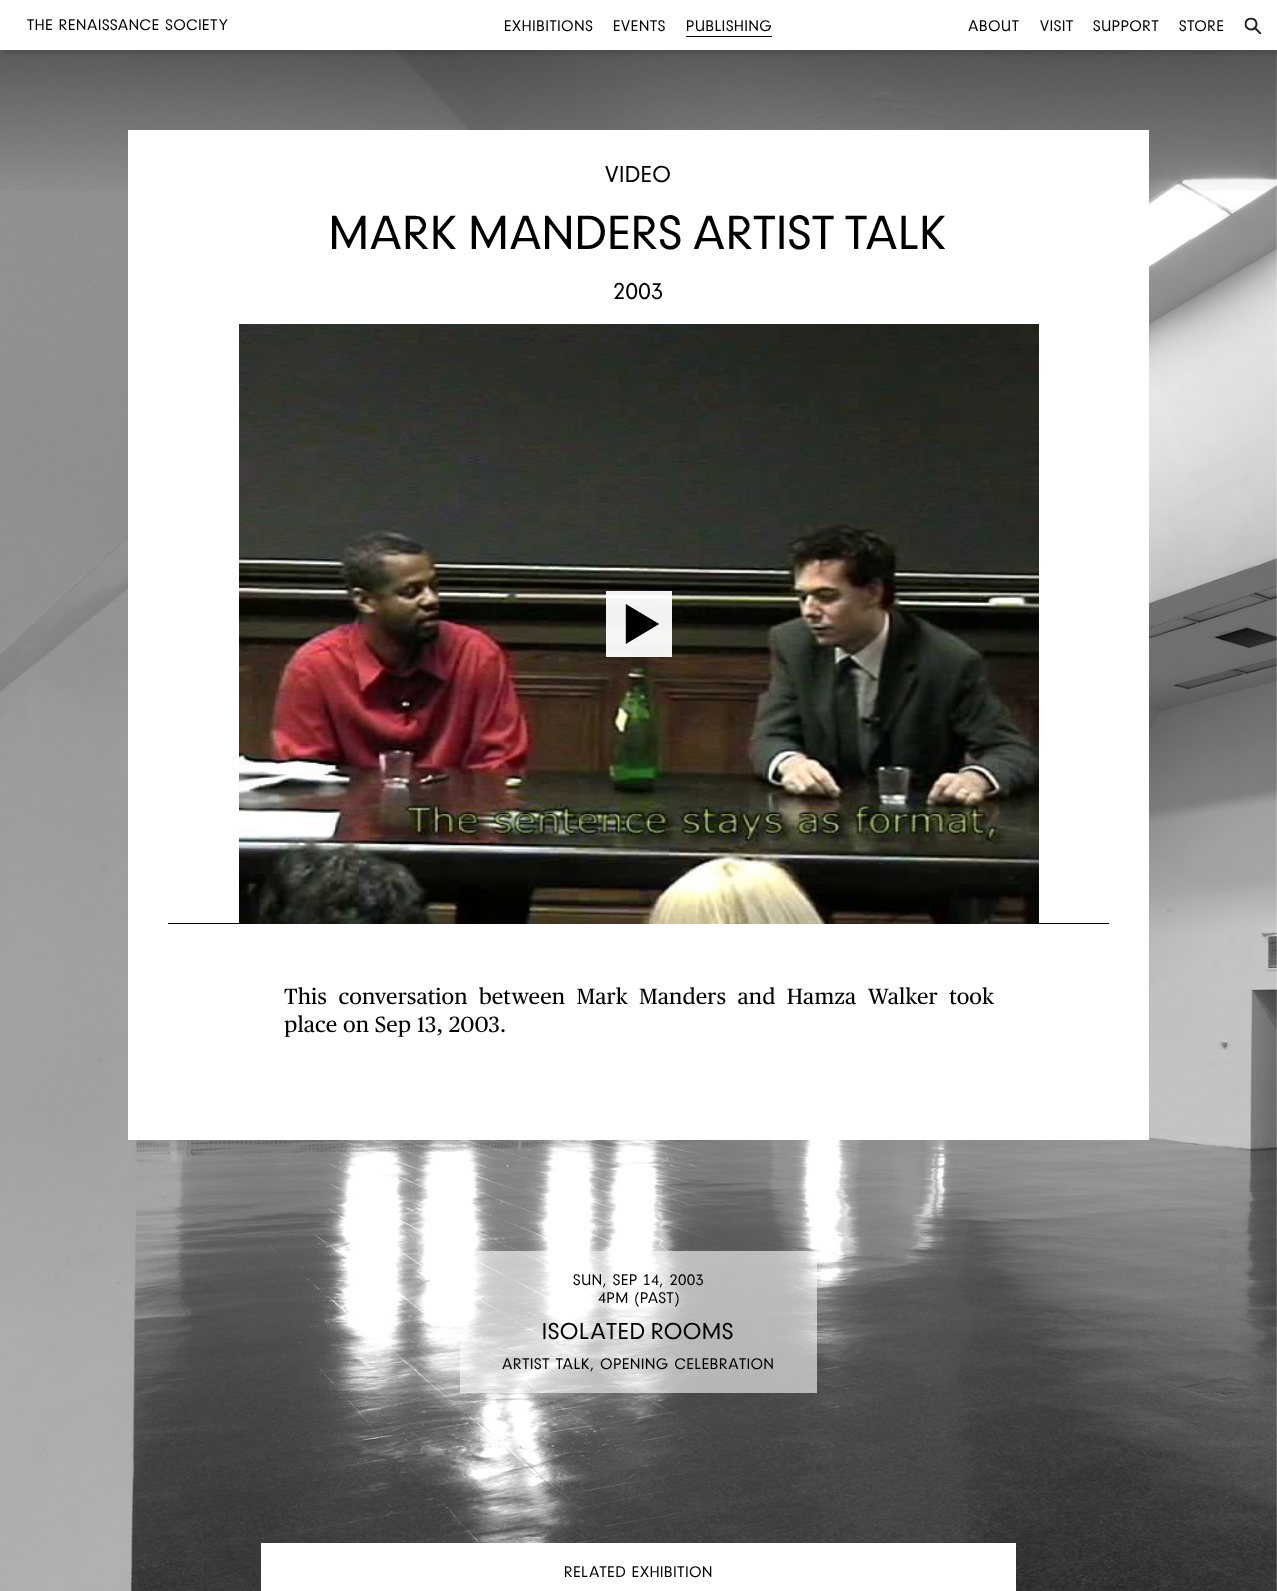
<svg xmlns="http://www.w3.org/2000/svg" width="1277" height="1591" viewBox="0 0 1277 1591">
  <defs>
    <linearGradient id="g1" gradientUnits="userSpaceOnUse" x1="639" y1="0" x2="639" y2="200"><stop offset="0" stop-color="#000000" stop-opacity="0.49"/><stop offset="1" stop-color="#000000" stop-opacity="0"/></linearGradient>
    <filter id="blur1" x="-50%" y="-200%" width="200%" height="500%"><feGaussianBlur stdDeviation="1.5"/></filter>
  </defs>
  <rect width="100%" height="100%" fill="#ffffff"/>
  <image x="0" y="50" width="1277" height="1541" href="img2.png"/>
  <rect x="0" y="50" width="1277" height="141" fill="url(#g1)"/>
  <rect x="4" y="4" width="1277" height="50" fill="#000000" fill-opacity="0.1" filter="url(#blur1)"/>
  <rect x="2" y="2" width="1275" height="48" fill="#ffffff"/>
  <text x="27" y="30" font-family="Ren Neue" font-size="16" letter-spacing="0.75" fill="#000000">THE RENAISSANCE SOCIETY</text>
  <text x="504" y="31" font-family="Ren Neue" font-size="16" letter-spacing="0.75" fill="#000000">EXHIBITIONS</text>
  <text x="613" y="31" font-family="Ren Neue" font-size="16" letter-spacing="0.75" fill="#000000">EVENTS</text>
  <text x="686" y="31" font-family="Ren Neue" font-size="16" letter-spacing="0.75" fill="#000000">PUBLISHING</text>
  <rect x="686" y="36" width="86" height="1" fill="#000000"/>
  <text x="968" y="31" font-family="Ren Neue" font-size="16" letter-spacing="0.75" fill="#000000">ABOUT</text>
  <text x="1040" y="31" font-family="Ren Neue" font-size="16" letter-spacing="0.75" fill="#000000">VISIT</text>
  <text x="1093" y="31" font-family="Ren Neue" font-size="16" letter-spacing="0.75" fill="#000000">SUPPORT</text>
  <text x="1179" y="31" font-family="Ren Neue" font-size="16" letter-spacing="0.75" fill="#000000">STORE</text>
  <image x="1244" y="17" width="18" height="18" href="img1.png"/>
  <rect x="128" y="130" width="1021" height="1010" fill="#ffffff"/>
  <text x="605" y="182" font-family="Ren Neue" font-size="24" letter-spacing="0.75" fill="#000000">VIDEO</text>
  <text x="329" y="249" word-spacing="-6" font-family="Ren Neue" font-size="50" letter-spacing="1" fill="#000000">MARK MANDERS ARTIST TALK</text>
  <text x="613" y="299" font-family="Ren Neue" font-size="24" letter-spacing="0.75" fill="#000000">2003</text>
  <rect x="168" y="923" width="941" height="1" fill="#000000"/>
  <image x="239" y="324" width="800" height="600" href="img3.png"/>
  <image x="606" y="591" width="66" height="66" href="img4.png"/>
  <text x="284" y="1004" word-spacing="5.75" font-family="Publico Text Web" font-size="22" letter-spacing="0.1" fill="#000000">This conversation between Mark Manders and Hamza Walker took</text>
  <text x="284" y="1032" font-family="Publico Text Web" font-size="22" letter-spacing="0.1" fill="#000000">place on Sep 13, 2003.</text>
  <rect x="460" y="1251" width="357" height="142" fill="#ffffff" fill-opacity="0.6"/>
  <text x="573" y="1285" font-family="Ren Neue" font-size="16" letter-spacing="0.75" fill="#000000">SUN, SEP 14, 2003</text>
  <text x="598" y="1303" font-family="Ren Neue" font-size="16" letter-spacing="0.75" fill="#000000">4PM (PAST)</text>
  <text x="542" y="1339" word-spacing="-3" font-family="Ren Neue" font-size="24" letter-spacing="1" fill="#000000">ISOLATED ROOMS</text>
  <text x="502" y="1369" font-family="Ren Neue" font-size="16" letter-spacing="0.75" fill="#000000">ARTIST TALK, OPENING CELEBRATION</text>
  <rect x="261" y="1543" width="755" height="48" fill="#ffffff"/>
  <text x="564" y="1577" font-family="Ren Neue" font-size="16" letter-spacing="0.75" fill="#000000">RELATED EXHIBITION</text>
</svg>
